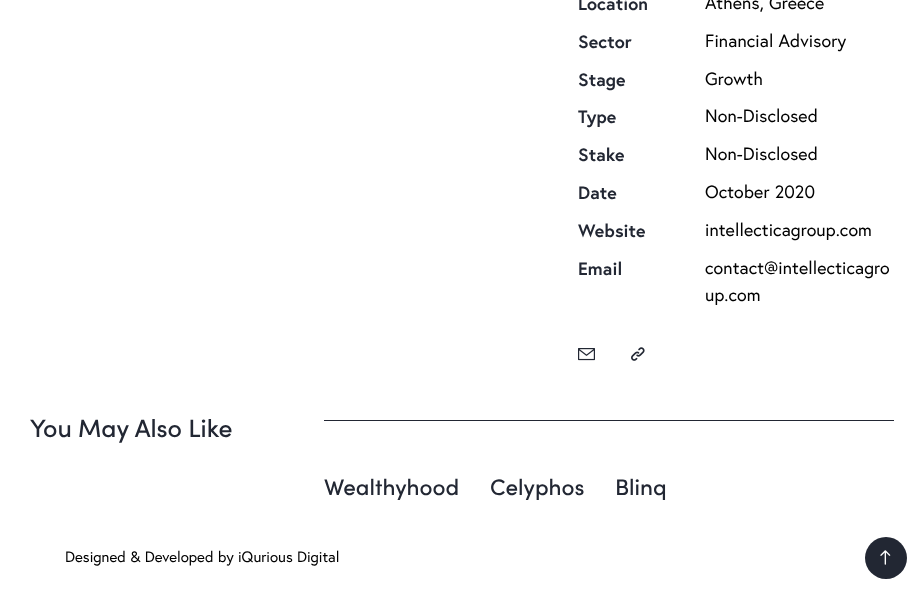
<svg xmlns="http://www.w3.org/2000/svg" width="924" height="596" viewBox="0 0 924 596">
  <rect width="100%" height="100%" fill="#ffffff"/>
  <text x="578" y="10" font-family="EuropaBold" font-size="17.8" font-weight="bold" letter-spacing="0.1" fill="#222733">Location</text>
  <text x="705" y="9" font-family="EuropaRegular" font-size="17.8" letter-spacing="0.1" fill="#000000">Athens, Greece</text>
  <text x="578" y="48" font-family="EuropaBold" font-size="17.8" font-weight="bold" letter-spacing="0.1" fill="#222733">Sector</text>
  <text x="705" y="47" font-family="EuropaRegular" font-size="17.8" letter-spacing="0.1" fill="#000000">Financial Advisory</text>
  <text x="578" y="86" font-family="EuropaBold" font-size="17.8" font-weight="bold" letter-spacing="0.1" fill="#222733">Stage</text>
  <text x="705" y="85" font-family="EuropaRegular" font-size="17.8" letter-spacing="0.1" fill="#000000">Growth</text>
  <text x="578" y="123" font-family="EuropaBold" font-size="17.8" font-weight="bold" letter-spacing="0.1" fill="#222733">Type</text>
  <text x="705" y="122" font-family="EuropaRegular" font-size="17.8" letter-spacing="0.1" fill="#000000">Non-Disclosed</text>
  <text x="578" y="161" font-family="EuropaBold" font-size="17.8" font-weight="bold" letter-spacing="0.1" fill="#222733">Stake</text>
  <text x="705" y="160" font-family="EuropaRegular" font-size="17.8" letter-spacing="0.1" fill="#000000">Non-Disclosed</text>
  <text x="578" y="199" font-family="EuropaBold" font-size="17.8" font-weight="bold" letter-spacing="0.1" fill="#222733">Date</text>
  <text x="705" y="198" font-family="EuropaRegular" font-size="17.8" letter-spacing="0.1" fill="#000000">October 2020</text>
  <text x="578" y="237" font-family="EuropaBold" font-size="17.8" font-weight="bold" letter-spacing="0.1" fill="#222733">Website</text>
  <text x="705" y="236" font-family="EuropaRegular" font-size="17.8" letter-spacing="0.1" fill="#000000">intellecticagroup.com</text>
  <text x="578" y="275" font-family="EuropaBold" font-size="17.8" font-weight="bold" letter-spacing="0.1" fill="#222733">Email</text>
  <text x="705" y="274" font-family="EuropaRegular" font-size="17.8" letter-spacing="0.1" fill="#000000">contact@intellecticagro</text>
  <text x="705" y="301" font-family="EuropaRegular" font-size="17.8" letter-spacing="0.1" fill="#000000">up.com</text>
  <image x="578" y="348" width="17" height="13" href="img1.png"/>
  <image x="631" y="347" width="14" height="14" href="img2.png"/>
  <text x="30" y="437" font-family="Sofia" font-size="25" font-weight="500" fill="#222733">You May Also Like</text>
  <rect x="324" y="420" width="570" height="1" fill="#222733"/>
  <text x="324" y="495" font-family="Sofia" font-size="22.5" font-weight="500" fill="#222733">Wealthyhood</text>
  <text x="490" y="495" font-family="Sofia" font-size="22.5" font-weight="500" fill="#222733">Celyphos</text>
  <text x="615" y="495" font-family="Sofia" font-size="22.5" font-weight="500" fill="#222733">Blinq</text>
  <text x="65" y="562" font-family="EuropaRegular" font-size="15" fill="#000000">Designed &amp; Developed by iQurious Digital</text>
  <circle cx="886" cy="558" r="21" fill="#222733"/>
  <image x="880" y="550" width="11" height="15" href="img3.png"/>
</svg>
